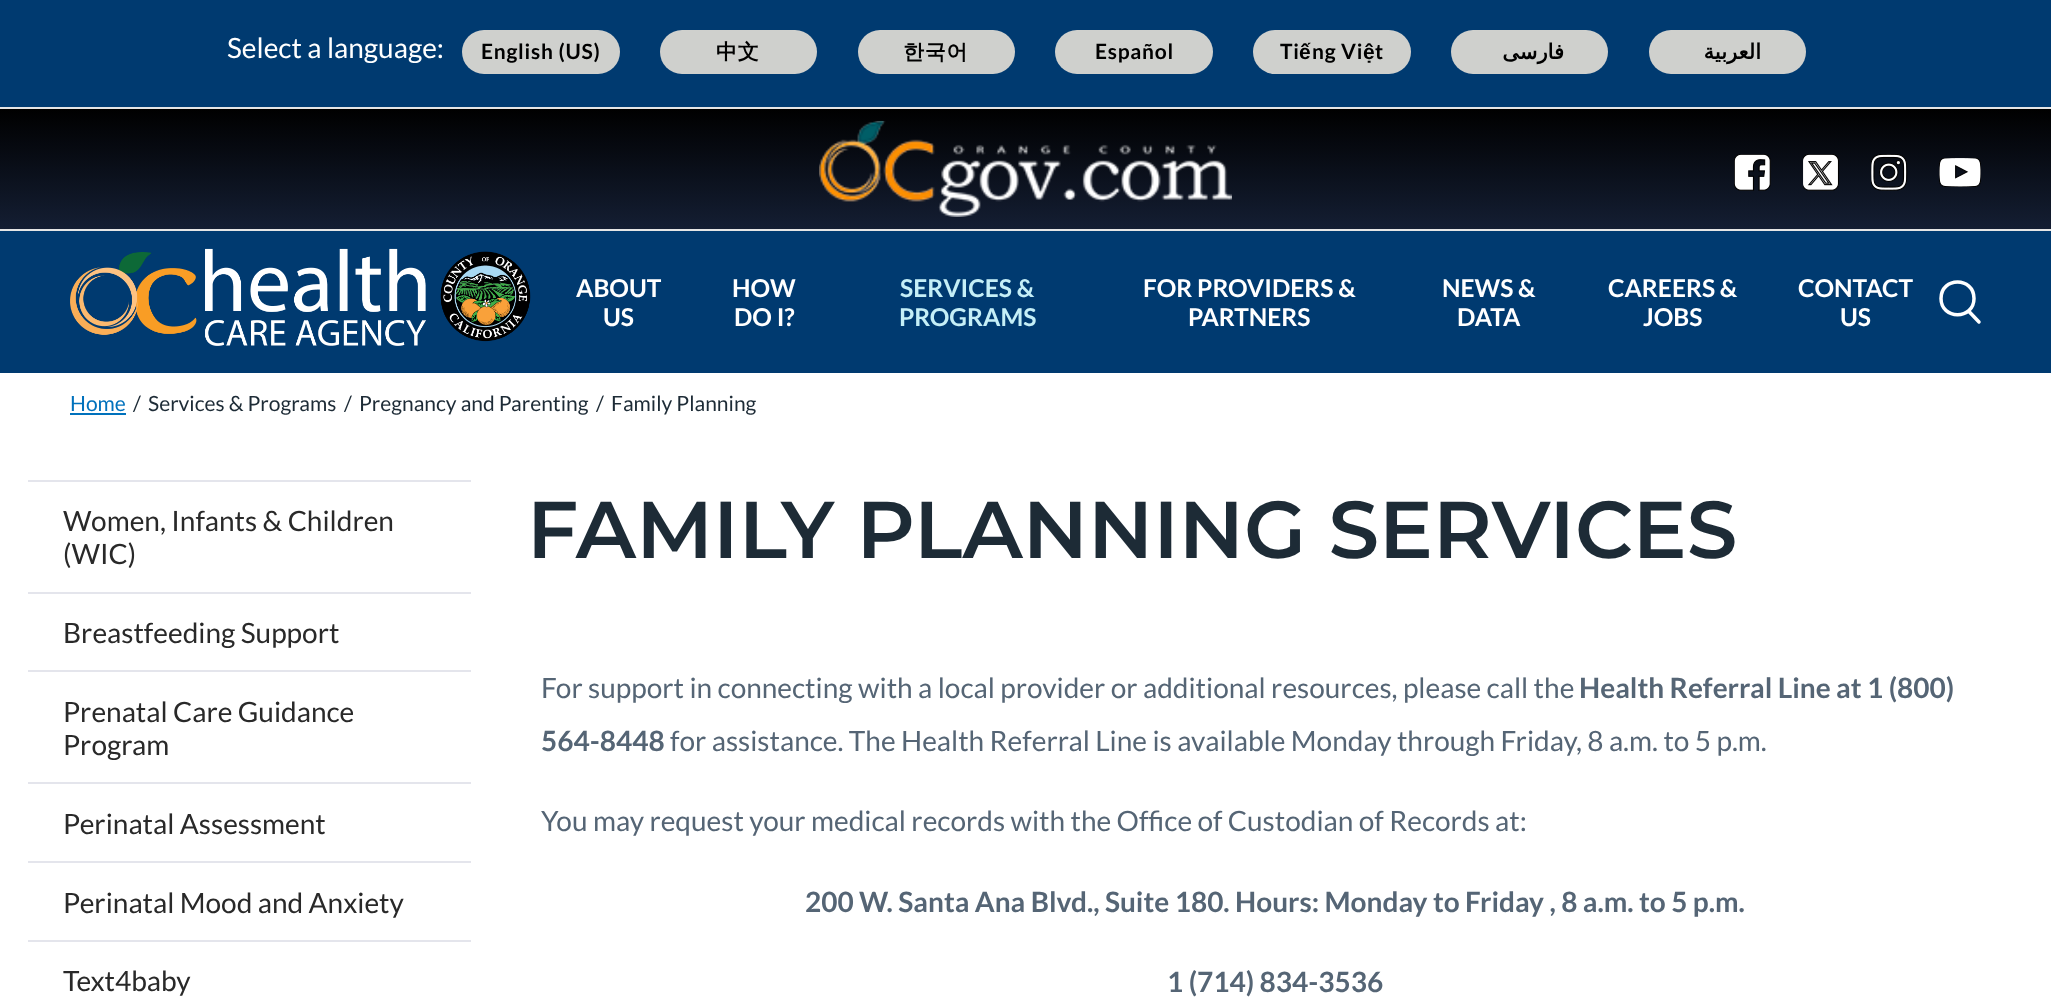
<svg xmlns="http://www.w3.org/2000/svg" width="2051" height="1004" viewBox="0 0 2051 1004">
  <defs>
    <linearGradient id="g1" gradientUnits="userSpaceOnUse" x1="1026" y1="229" x2="1026" y2="109"><stop offset="0" stop-color="#141e33"/><stop offset="1" stop-color="#000000"/></linearGradient>
  </defs>
  <rect width="100%" height="100%" fill="#ffffff"/>
  <rect x="0" y="0" width="2051" height="373" fill="#003a70"/>
  <text x="227" y="58" font-family="Lato" font-size="28" fill="#ffffff">Select a language:</text>
  <rect x="462" y="30" width="158" height="44" rx="22" fill="#cfd0cd"/>
  <text x="481" y="59" font-family="Lato" font-size="21" font-weight="bold" letter-spacing="0.75" fill="#000000">English (US)</text>
  <rect x="660" y="30" width="157" height="44" rx="22" fill="#cfd0cd"/>
  <text x="716" y="59" font-family="WenQuanYi Zen Hei" font-size="21" font-weight="bold" letter-spacing="0.75" fill="#000000">中文</text>
  <rect x="858" y="30" width="157" height="44" rx="22" fill="#cfd0cd"/>
  <text x="903" y="59" font-family="WenQuanYi Zen Hei" font-size="21" font-weight="bold" letter-spacing="0.75" fill="#000000">한국어</text>
  <rect x="1055" y="30" width="158" height="44" rx="22" fill="#cfd0cd"/>
  <text x="1095" y="59" font-family="Lato" font-size="21" font-weight="bold" letter-spacing="0.75" fill="#000000">Español</text>
  <rect x="1253" y="30" width="158" height="44" rx="22" fill="#cfd0cd"/>
  <text x="1280" y="59" font-family="Lato" font-size="21" font-weight="bold" letter-spacing="0.75" fill="#000000">Ti</text>
  <text x="1299" y="59" font-family="Liberation Sans" font-size="21" font-weight="bold" letter-spacing="0.75" fill="#000000">ế</text>
  <text x="1312" y="59" font-family="Lato" font-size="21" font-weight="bold" letter-spacing="0.75" fill="#000000">ng Vi</text>
  <text x="1363" y="59" font-family="Liberation Sans" font-size="21" font-weight="bold" letter-spacing="0.75" fill="#000000">ệ</text>
  <text x="1375" y="59" font-family="Lato" font-size="21" font-weight="bold" letter-spacing="0.75" fill="#000000">t</text>
  <rect x="1451" y="30" width="157" height="44" rx="22" fill="#cfd0cd"/>
  <text x="1564" y="59" font-family="DejaVu Sans" font-size="21" font-weight="bold" letter-spacing="0.75" direction="rtl" fill="#000000">فارسی</text>
  <rect x="1649" y="30" width="157" height="44" rx="22" fill="#cfd0cd"/>
  <text x="1761" y="59" font-family="DejaVu Sans" font-size="21" font-weight="bold" letter-spacing="0.75" direction="rtl" fill="#000000">العربية</text>
  <rect x="0" y="109" width="2051" height="120" fill="url(#g1)"/>
  <rect x="0" y="107" width="2051" height="2" fill="#e5e5e5"/>
  <rect x="0" y="229" width="2051" height="2" fill="#e5e5e5"/>
  <image x="819" y="120" width="413" height="97" href="img1.png"/>
  <image x="1734" y="154" width="37" height="37" href="img2.png"/>
  <image x="1803" y="154" width="36" height="37" href="img3.png"/>
  <image x="1871" y="154" width="37" height="37" href="img4.png"/>
  <image x="1939" y="158" width="42" height="29" href="img5.png"/>
  <image x="70" y="248" width="461" height="98" href="img6.png"/>
  <text x="576" y="297" font-family="Lato" font-size="24.5" font-weight="bold" fill="#ffffff">ABOUT</text>
  <text x="603" y="326" font-family="Lato" font-size="24.5" font-weight="bold" fill="#ffffff">US</text>
  <text x="732" y="297" font-family="Lato" font-size="24.5" font-weight="bold" fill="#ffffff">HOW</text>
  <text x="734" y="326" font-family="Lato" font-size="24.5" font-weight="bold" fill="#ffffff">DO I?</text>
  <text x="900" y="297" font-family="Lato" font-size="24.5" font-weight="bold" fill="#c5eff7">SERVICES &amp;</text>
  <text x="899" y="326" font-family="Lato" font-size="24.5" font-weight="bold" fill="#c5eff7">PROGRAMS</text>
  <text x="1143" y="297" font-family="Lato" font-size="24.5" font-weight="bold" fill="#ffffff">FOR PROVIDERS &amp;</text>
  <text x="1188" y="326" font-family="Lato" font-size="24.5" font-weight="bold" fill="#ffffff">PARTNERS</text>
  <text x="1442" y="297" font-family="Lato" font-size="24.5" font-weight="bold" fill="#ffffff">NEWS &amp;</text>
  <text x="1457" y="326" font-family="Lato" font-size="24.5" font-weight="bold" fill="#ffffff">DATA</text>
  <text x="1608" y="297" font-family="Lato" font-size="24.5" font-weight="bold" fill="#ffffff">CAREERS &amp;</text>
  <text x="1643" y="326" font-family="Lato" font-size="24.5" font-weight="bold" fill="#ffffff">JOBS</text>
  <text x="1798" y="297" font-family="Lato" font-size="24.5" font-weight="bold" fill="#ffffff">CONTACT</text>
  <text x="1840" y="326" font-family="Lato" font-size="24.5" font-weight="bold" fill="#ffffff">US</text>
  <path d="M1941 298.5C1941 276.5 1974 276.5 1974 298.5C1974 320 1941 320 1941 298.5ZM1969 311.5L1979 322" fill="none" stroke="#ffffff" stroke-width="3.5" stroke-linecap="round" stroke-linejoin="round"/>
  <text x="70" y="411" font-family="Lato" font-size="21" fill="#0071bc">Home</text>
  <rect x="70" y="413" width="56" height="2" fill="#0071bc"/>
  <text x="133" y="411" font-family="Lato" font-size="21" fill="#1d2b36">/</text>
  <text x="148" y="411" font-family="Lato" font-size="21" fill="#1d2b36">Services &amp; Programs</text>
  <text x="344" y="411" font-family="Lato" font-size="21" fill="#1d2b36">/</text>
  <text x="359" y="411" font-family="Lato" font-size="21" fill="#1d2b36">Pregnancy and Parenting</text>
  <text x="596" y="411" font-family="Lato" font-size="21" fill="#1d2b36">/</text>
  <text x="611" y="411" font-family="Lato" font-size="21" fill="#1d2b36">Family Planning</text>
  <rect x="28" y="480" width="443" height="2" fill="#e4e5ec"/>
  <text x="63" y="531" font-family="Lato" font-size="28" fill="#292929">Women, Infants &amp; Children</text>
  <text x="63" y="564" font-family="Lato" font-size="28" fill="#292929">(WIC)</text>
  <rect x="28" y="592" width="443" height="2" fill="#e4e5ec"/>
  <text x="63" y="643" font-family="Lato" font-size="28" fill="#292929">Breastfeeding Support</text>
  <rect x="28" y="670" width="443" height="2" fill="#e4e5ec"/>
  <text x="63" y="722" font-family="Lato" font-size="28" fill="#292929">Prenatal Care Guidance</text>
  <text x="63" y="755" font-family="Lato" font-size="28" fill="#292929">Program</text>
  <rect x="28" y="782" width="443" height="2" fill="#e4e5ec"/>
  <text x="63" y="834" font-family="Lato" font-size="28" fill="#292929">Perinatal Assessment</text>
  <rect x="28" y="861" width="443" height="2" fill="#e4e5ec"/>
  <text x="63" y="913" font-family="Lato" font-size="28" fill="#292929">Perinatal Mood and Anxiety</text>
  <rect x="28" y="940" width="443" height="2" fill="#e4e5ec"/>
  <text x="63" y="991" font-family="Lato" font-size="28" fill="#292929">Text4baby</text>
  <text x="527" y="558" font-family="Montserrat" font-size="80.5" font-weight="600" fill="#1d2b36">FAMILY PLANNING SERVICES</text>
  <text x="541" y="698" font-family="Lato" font-size="28" fill="#556575">For support in connecting with a local provider or additional resources, please call the</text>
  <text x="1579" y="698" font-family="Lato" font-size="28" font-weight="bold" fill="#556575">Health Referral Line at 1 (800)</text>
  <text x="541" y="751" font-family="Lato" font-size="28" font-weight="bold" fill="#556575">564-8448</text>
  <text x="670" y="751" font-family="Lato" font-size="28" fill="#556575">for assistance. The Health Referral Line is available Monday through Friday, 8 a.m. to 5 p.m.</text>
  <text x="541" y="831" font-family="Lato" font-size="28" fill="#556575">You may request your medical records with the Office of Custodian of Records at:</text>
  <text x="805" y="912" font-family="Lato" font-size="28" font-weight="bold" fill="#556575">200 W. Santa Ana Blvd., Suite 180. Hours: Monday to Friday , 8 a.m. to 5 p.m.</text>
  <text x="1167" y="992" font-family="Lato" font-size="28" font-weight="bold" fill="#556575">1 (714) 834-3536</text>
</svg>
